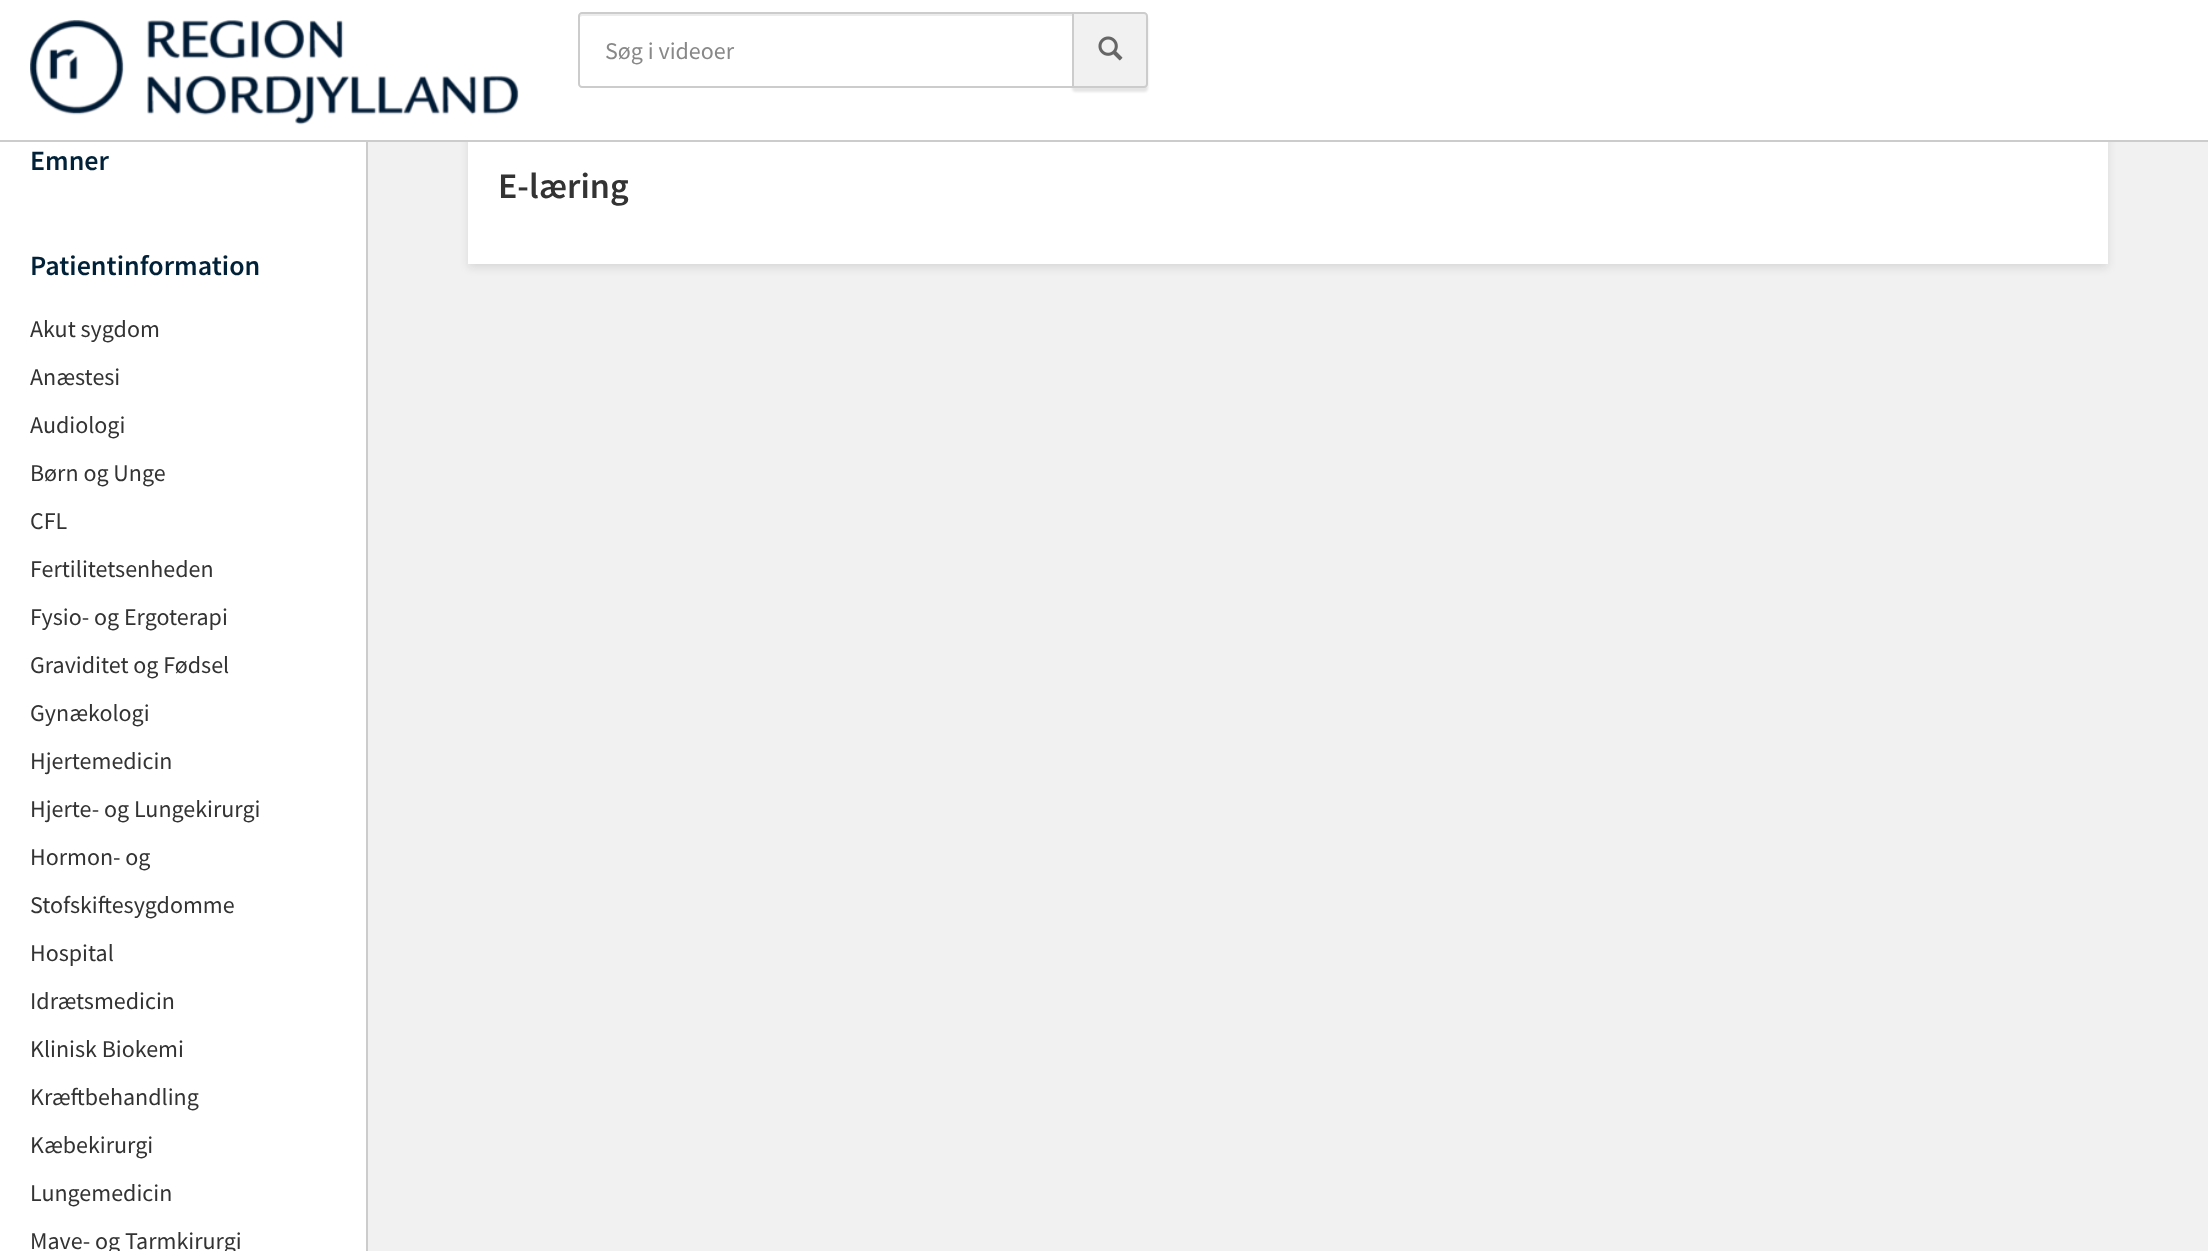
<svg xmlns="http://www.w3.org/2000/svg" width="2208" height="1251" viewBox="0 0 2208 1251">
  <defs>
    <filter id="blur1" x="-50%" y="-200%" width="200%" height="500%"><feGaussianBlur stdDeviation="4"/></filter>
    <filter id="blur2" x="-50%" y="-200%" width="200%" height="500%"><feGaussianBlur stdDeviation="1"/></filter>
  </defs>
  <rect width="100%" height="100%" fill="#f1f1f1"/>
  <rect x="468" y="136" width="1640" height="132" fill="#000000" fill-opacity="0.1" filter="url(#blur1)"/>
  <rect x="0" y="0" width="2208" height="140" fill="#ffffff"/>
  <rect x="0" y="140" width="2208" height="2" fill="#cccccc"/>
  <image x="30" y="20" width="489" height="105" href="img1.png"/>
  <rect x="1072" y="16" width="76" height="76" rx="4" fill="#000000" fill-opacity="0.1" filter="url(#blur2)"/>
  <path d="M1073 13H1144C1145.5 13 1147 14.5 1147 16V84C1147 85.5 1145.5 87 1144 87H1073Z" fill="#f1f1f1" stroke="#cccccc" stroke-width="2"/>
  <path d="M582 12H1074V88H582C580 88 578 86 578 84V16C578 14 580 12 582 12Z" fill="#ffffff"/>
  <path d="M582 16H1072V14H582L580 15V17Z" fill="#ececec"/>
  <path d="M582 13H1073V87H582C580.5 87 579 85.5 579 84V16C579 14.5 580.5 13 582 13Z" fill="none" stroke="#cccccc" stroke-width="2"/>
  <text x="605" y="59" font-family="Source Sans Pro" font-size="24" fill="#888888">Søg i videoer</text>
  <image x="1098" y="36" width="25" height="25" href="img2.png"/>
  <rect x="0" y="142" width="366" height="1109" fill="#ffffff"/>
  <rect x="366" y="142" width="2" height="1109" fill="#cccccc"/>
  <text x="30" y="170" font-family="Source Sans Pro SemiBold" font-size="28" font-weight="600" fill="#002138">Emner</text>
  <text x="30" y="275" font-family="Source Sans Pro SemiBold" font-size="28" font-weight="600" fill="#002138">Patientinformation</text>
  <text x="30" y="337" font-family="Source Sans Pro" font-size="24" fill="#333333">Akut sygdom</text>
  <text x="30" y="385" font-family="Source Sans Pro" font-size="24" fill="#333333">Anæstesi</text>
  <text x="30" y="433" font-family="Source Sans Pro" font-size="24" fill="#333333">Audiologi</text>
  <text x="30" y="481" font-family="Source Sans Pro" font-size="24" fill="#333333">Børn og Unge</text>
  <text x="30" y="529" font-family="Source Sans Pro" font-size="24" fill="#333333">CFL</text>
  <text x="30" y="577" font-family="Source Sans Pro" font-size="24" fill="#333333">Fertilitetsenheden</text>
  <text x="30" y="625" font-family="Source Sans Pro" font-size="24" fill="#333333">Fysio- og Ergoterapi</text>
  <text x="30" y="673" font-family="Source Sans Pro" font-size="24" fill="#333333">Graviditet og Fødsel</text>
  <text x="30" y="721" font-family="Source Sans Pro" font-size="24" fill="#333333">Gynækologi</text>
  <text x="30" y="769" font-family="Source Sans Pro" font-size="24" fill="#333333">Hjertemedicin</text>
  <text x="30" y="817" font-family="Source Sans Pro" font-size="24" fill="#333333">Hjerte- og Lungekirurgi</text>
  <text x="30" y="865" font-family="Source Sans Pro" font-size="24" fill="#333333">Hormon- og</text>
  <text x="30" y="913" font-family="Source Sans Pro" font-size="24" fill="#333333">Stofskiftesygdomme</text>
  <text x="30" y="961" font-family="Source Sans Pro" font-size="24" fill="#333333">Hospital</text>
  <text x="30" y="1009" font-family="Source Sans Pro" font-size="24" fill="#333333">Idrætsmedicin</text>
  <text x="30" y="1057" font-family="Source Sans Pro" font-size="24" fill="#333333">Klinisk Biokemi</text>
  <text x="30" y="1105" font-family="Source Sans Pro" font-size="24" fill="#333333">Kræftbehandling</text>
  <text x="30" y="1153" font-family="Source Sans Pro" font-size="24" fill="#333333">Kæbekirurgi</text>
  <text x="30" y="1201" font-family="Source Sans Pro" font-size="24" fill="#333333">Lungemedicin</text>
  <text x="30" y="1249" font-family="Source Sans Pro" font-size="24" fill="#333333">Mave- og Tarmkirurgi</text>
  <rect x="468" y="142" width="1640" height="122" fill="#ffffff"/>
  <text x="498" y="198" font-family="Source Sans Pro SemiBold" font-size="36" font-weight="600" fill="#333333">E-læring</text>
</svg>
